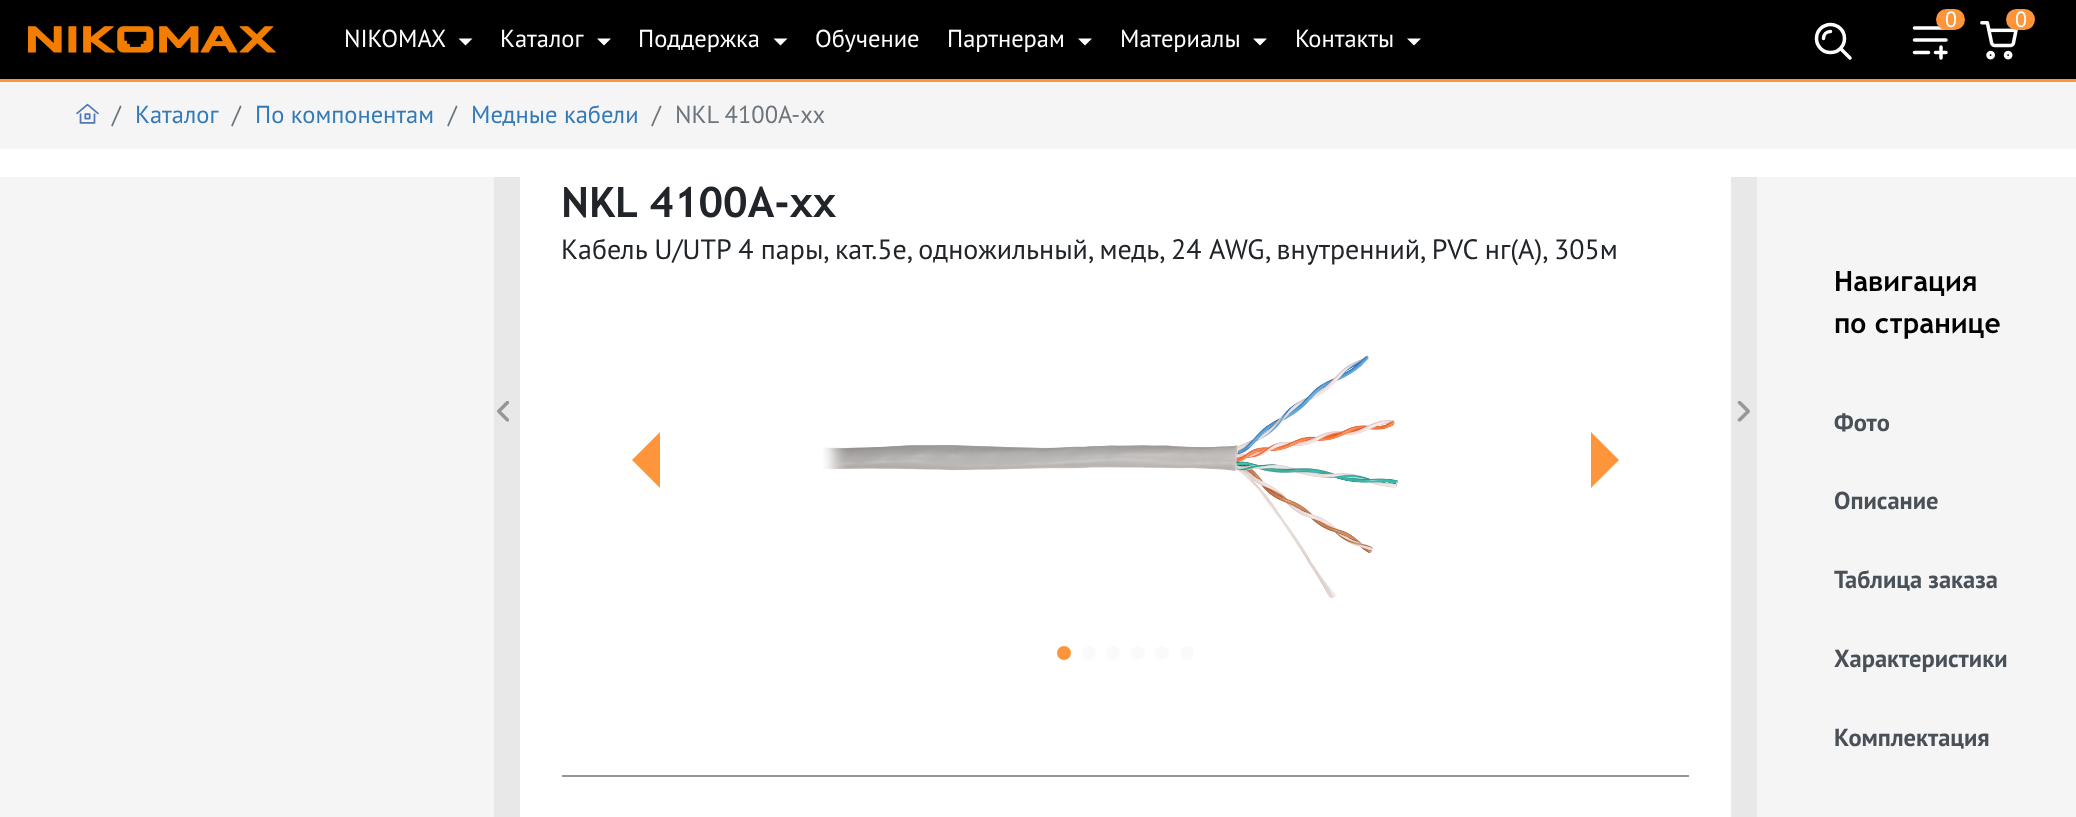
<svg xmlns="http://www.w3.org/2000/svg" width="2076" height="817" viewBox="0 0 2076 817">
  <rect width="100%" height="100%" fill="#ffffff"/>
  <path d="M0-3V0H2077V79H0V82H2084V-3Z" fill="#ff953a"/>
  <rect x="0" y="0" width="2076" height="79" fill="#000000"/>
  <path d="M1914.5 40H1946M1914.5 28H1946M1914.5 52.5H1928.5M1935.5 52.5H1946M1941 47V58" fill="none" stroke="#ffffff" stroke-width="3.5" stroke-linecap="round" stroke-linejoin="round"/>
  <rect x="1936" y="9" width="29" height="21" rx="10.5" fill="#ff953a"/>
  <text x="1945" y="27" font-family="PT Sans" font-size="22" fill="#ffffff">0</text>
  <image x="1980" y="21" width="38" height="39" href="img1.png"/>
  <rect x="2006" y="9" width="29" height="21" rx="10.5" fill="#ff953a"/>
  <text x="2015" y="27" font-family="PT Sans" font-size="22" fill="#ffffff">0</text>
  <image x="28" y="26" width="248" height="27" href="img2.png"/>
  <text x="344" y="47" font-family="PT Sans" font-size="24.5" fill="#ffffff">NIKOMAX</text>
  <path d="M458.5 38.5H472.5L465.5 45.5Z" fill="#ffffff"/>
  <text x="500" y="47" font-family="PT Sans" font-size="24.5" fill="#ffffff">Каталог</text>
  <path d="M597 38.5H611L604 45.5Z" fill="#ffffff"/>
  <text x="638" y="47" font-family="PT Sans" font-size="24.5" fill="#ffffff">Поддержка</text>
  <path d="M773.5 38.5H787.5L780.5 45.5Z" fill="#ffffff"/>
  <text x="815" y="47" font-family="PT Sans" font-size="24.5" fill="#ffffff">Обучение</text>
  <text x="947" y="47" font-family="PT Sans" font-size="24.5" fill="#ffffff">Партнерам</text>
  <path d="M1078 38.5H1092L1085 45.5Z" fill="#ffffff"/>
  <text x="1120" y="47" font-family="PT Sans" font-size="24.5" fill="#ffffff">Материалы</text>
  <path d="M1253 38.5H1267L1260 45.5Z" fill="#ffffff"/>
  <text x="1295" y="47" font-family="PT Sans" font-size="24.5" fill="#ffffff">Контакты</text>
  <path d="M1407 38.5H1421L1414 45.5Z" fill="#ffffff"/>
  <circle cx="1830.5" cy="38.5" r="14" fill="none" stroke="#ffffff" stroke-width="3.5"/>
  <path d="M1823.5 38.5C1823.5 34.5 1826.5 31.5 1830.5 31.5M1841 49L1850 58" fill="none" stroke="#ffffff" stroke-width="3.5" stroke-linecap="round"/>
  <rect x="0" y="82" width="2076" height="67" fill="#f5f5f5"/>
  <image x="76" y="103" width="23" height="21" href="img3.png"/>
  <text x="112" y="123" font-family="PT Sans" font-size="24.5" fill="#6c757d">/</text>
  <text x="135" y="123" font-family="PT Sans" font-size="24.5" fill="#337ab7">Каталог</text>
  <text x="232" y="123" font-family="PT Sans" font-size="24.5" fill="#6c757d">/</text>
  <text x="255" y="123" font-family="PT Sans" font-size="24.5" fill="#337ab7">По компонентам</text>
  <text x="448" y="123" font-family="PT Sans" font-size="24.5" fill="#6c757d">/</text>
  <text x="471" y="123" font-family="PT Sans" font-size="24.5" fill="#337ab7">Медные кабели</text>
  <text x="652" y="123" font-family="PT Sans" font-size="24.5" fill="#6c757d">/</text>
  <text x="675" y="123" font-family="PT Sans" font-size="24.5" fill="#6c757d">NKL 4100A-xx</text>
  <rect x="0" y="177" width="494" height="640" fill="#f5f5f5"/>
  <rect x="494" y="177" width="26" height="640" fill="#e8e8e8"/>
  <image x="497" y="401" width="12" height="21" href="img4.png"/>
  <rect x="562" y="775" width="1127" height="2" fill="#969696"/>
  <text x="561" y="217" font-family="Trebuchet MS" font-size="42" font-weight="bold" fill="#212529">NKL 4100A-xx</text>
  <text x="561" y="259" font-family="PT Sans" font-size="28" fill="#212529">Кабель U/UTP 4 пары, кат.5e, одножильный, медь,</text>
  <text x="1171" y="259" word-spacing="1" font-family="PT Sans" font-size="28" fill="#212529">24 AWG</text>
  <text x="1265" y="259" font-family="PT Sans" font-size="28" fill="#212529">, внутренний, PVC нг(А), 305м</text>
  <path d="M660 432V488L632 460Z" fill="#ff953a"/>
  <image x="823" y="355" width="575" height="244" href="img5.png"/>
  <path d="M1591 488V432L1619 460Z" fill="#ff953a"/>
  <circle cx="1064" cy="653" r="7" fill="#ff953a"/>
  <circle cx="1089" cy="653" r="7" fill="#fafafa"/>
  <circle cx="1113" cy="653" r="7" fill="#fafafa"/>
  <circle cx="1138" cy="653" r="7" fill="#fafafa"/>
  <circle cx="1162" cy="653" r="7" fill="#fafafa"/>
  <circle cx="1187" cy="653" r="7" fill="#fafafa"/>
  <rect x="1757" y="177" width="319" height="640" fill="#f5f5f5"/>
  <rect x="1731" y="177" width="26" height="640" fill="#e8e8e8"/>
  <image x="1737" y="401" width="13" height="21" href="img6.png"/>
  <text x="1834" y="291" font-family="Trebuchet MS" font-size="28" font-weight="bold" fill="#000000">Навигация</text>
  <text x="1834" y="333" font-family="Trebuchet MS" font-size="28" font-weight="bold" fill="#000000">по странице</text>
  <text x="1834" y="431" font-family="PT Sans" font-size="24.5" font-weight="bold" fill="#495057">Фото</text>
  <text x="1834" y="509" font-family="PT Sans" font-size="24.5" font-weight="bold" fill="#495057">Описание</text>
  <text x="1834" y="588" font-family="PT Sans" font-size="24.5" font-weight="bold" fill="#495057">Таблица заказа</text>
  <text x="1834" y="667" font-family="PT Sans" font-size="24.5" font-weight="bold" fill="#495057">Характеристики</text>
  <text x="1834" y="746" font-family="PT Sans" font-size="24.5" font-weight="bold" fill="#495057">Комплектация</text>
</svg>
